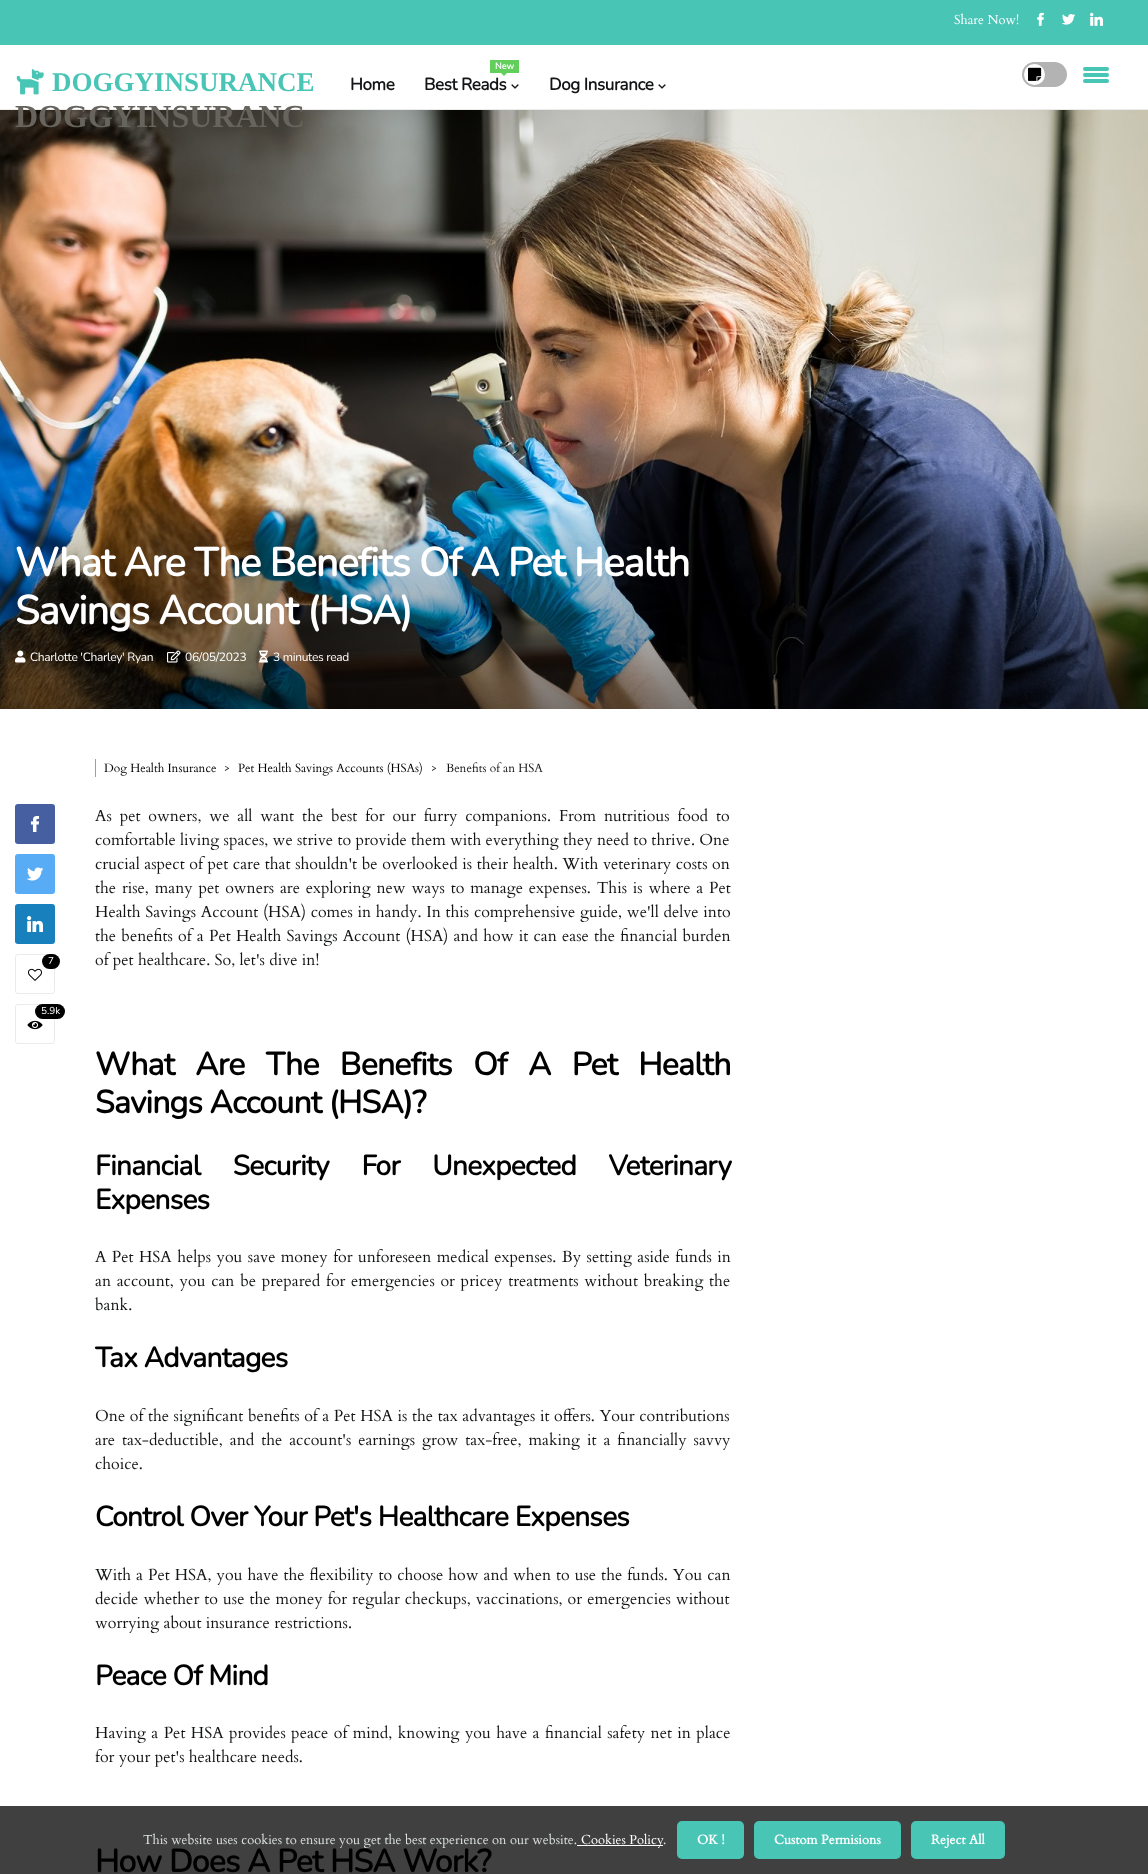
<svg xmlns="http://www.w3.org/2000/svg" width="1148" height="1874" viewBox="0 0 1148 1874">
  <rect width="100%" height="100%" fill="#ffffff"/>
  <rect x="0" y="1806" width="1148" height="68" fill="#404040"/>
  <rect x="0" y="0" width="1148" height="45" fill="#49c5b6"/>
  <text x="954" y="24" font-family="Cardo" font-size="13" fill="#ffffff">Share Now!</text>
  <image x="1037" y="12" width="7" height="14" href="img1.png"/>
  <image x="1062" y="14" width="13" height="11" href="img2.png"/>
  <image x="1090" y="12" width="13" height="14" href="img3.png"/>
  <rect x="0" y="109" width="1148" height="1" fill="#ebebeb"/>
  <image x="16" y="69" width="28" height="26" href="img4.png"/>
  <text x="52" y="91" font-family="Liberation Serif" font-size="27" font-weight="bold" fill="#49c5b6">DOGGYINSURANCE</text>
  <image x="0" y="110" width="1148" height="599" href="img7.png"/>
  <text x="15" y="127" font-family="Liberation Serif" font-size="32" font-weight="bold" fill="#67645e">DOGGYINSURANC</text>
  <text x="350" y="90" font-family="Nunito" font-size="17" font-weight="bold" letter-spacing="-0.4" fill="#121416">Home</text>
  <rect x="490" y="60" width="29" height="13" fill="#62ce5c"/>
  <text x="495" y="69" font-family="Nunito" font-size="9" font-weight="bold" fill="#ffffff">New</text>
  <path d="M501 73H507L504 76Z" fill="#62ce5c"/>
  <text x="424" y="90" font-family="Nunito" font-size="17" font-weight="bold" letter-spacing="-0.4" fill="#121416">Best Reads</text>
  <image x="511" y="84" width="8" height="5" href="img5.png"/>
  <text x="549" y="90" font-family="Nunito" font-size="17" font-weight="bold" letter-spacing="-0.4" fill="#121416">Dog Insurance</text>
  <image x="658" y="84" width="8" height="5" href="img5.png"/>
  <rect x="1022" y="62" width="45" height="25" rx="12.5" fill="#b3b3b3"/>
  <circle cx="1034.5" cy="74.5" r="10.5" fill="#ffffff"/>
  <image x="1028" y="67" width="14" height="14" href="img6.png"/>
  <rect x="1083" y="67" width="26" height="4" rx="2" fill="#49c5b6"/>
  <rect x="1083" y="73" width="26" height="4" rx="2" fill="#49c5b6"/>
  <rect x="1083" y="79" width="26" height="4" rx="2" fill="#49c5b6"/>
  <text x="15" y="576" font-family="Nunito" font-size="40" font-weight="bold" letter-spacing="-1" fill="#ffffff">What Are The Benefits Of A Pet Health</text>
  <text x="15" y="624" font-family="Nunito" font-size="40" font-weight="bold" letter-spacing="-1" fill="#ffffff">Savings Account (HSA)</text>
  <image x="15" y="650" width="11" height="13" href="img8.png"/>
  <text x="30" y="661" font-family="Nunito" font-size="12" font-weight="200" letter-spacing="-0.3" fill="#ffffff">Charlotte 'Charley' Ryan</text>
  <image x="167" y="650" width="14" height="13" href="img9.png"/>
  <text x="185" y="661" font-family="Nunito" font-size="12" font-weight="200" letter-spacing="-0.3" fill="#ffffff">06/05/2023</text>
  <image x="259" y="650" width="9" height="13" href="img10.png"/>
  <text x="273" y="661" font-family="Nunito" font-size="12" font-weight="200" letter-spacing="-0.3" fill="#ffffff">3 minutes read</text>
  <rect x="95" y="759" width="1" height="18" fill="#49c5b6"/>
  <text x="104" y="772" font-family="Cardo" font-size="12" fill="#000000">Dog Health Insurance</text>
  <text x="224" y="772" font-family="Cardo" font-size="12" fill="#121416">&gt;</text>
  <text x="238" y="772" font-family="Cardo" font-size="12" fill="#000000">Pet Health Savings Accounts (HSAs)</text>
  <text x="431" y="772" font-family="Cardo" font-size="12" fill="#121416">&gt;</text>
  <text x="446" y="772" font-family="Cardo" font-size="12" fill="#121416">Benefits of an HSA</text>
  <rect x="15" y="804" width="40" height="40" rx="3" fill="#455fa1"/>
  <image x="30" y="816" width="10" height="16" href="img11.png"/>
  <rect x="15" y="854" width="40" height="40" rx="3" fill="#58abf5"/>
  <image x="27" y="867" width="16" height="14" href="img12.png"/>
  <rect x="15" y="904" width="40" height="40" rx="3" fill="#1980be"/>
  <image x="27" y="916" width="16" height="16" href="img13.png"/>
  <rect x="15.5" y="954.5" width="39" height="39" rx="2.5" fill="none" stroke="#ebebeb"/>
  <image x="28" y="968" width="14" height="13" href="img14.png"/>
  <rect x="42" y="954" width="18" height="15" rx="7.5" fill="#000000"/>
  <text x="48" y="964" font-family="Nunito" font-size="10" font-weight="200" fill="#ffffff">7</text>
  <rect x="15.5" y="1004.5" width="39" height="39" rx="2.5" fill="none" stroke="#ebebeb"/>
  <image x="27" y="1020" width="16" height="10" href="img15.png"/>
  <rect x="35" y="1004" width="30" height="15" rx="7.5" fill="#000000"/>
  <text x="41" y="1014" font-family="Nunito" font-size="10" font-weight="200" fill="#ffffff">5.9k</text>
  <text x="95" y="821" word-spacing="3.6" font-family="Cardo" font-size="16" fill="#121416">As pet owners, we all want the best for our furry companions. From nutritious food to</text>
  <text x="95" y="845" font-family="Cardo" font-size="16" fill="#121416">comfortable living spaces, we strive to provide them with everything they need to thrive. One</text>
  <text x="95" y="869" word-spacing="0.3" font-family="Cardo" font-size="16" fill="#121416">crucial aspect of pet care that shouldn't be overlooked is their health. With veterinary costs on</text>
  <text x="95" y="893" word-spacing="1.5" font-family="Cardo" font-size="16" fill="#121416">the rise, many pet owners are exploring new ways to manage expenses. This is where a Pet</text>
  <text x="95" y="917" word-spacing="0.4" font-family="Cardo" font-size="16" fill="#121416">Health Savings Account (HSA) comes in handy. In this comprehensive guide, we'll delve into</text>
  <text x="95" y="941" word-spacing="0.9" font-family="Cardo" font-size="16" fill="#121416">the benefits of a Pet Health Savings Account (HSA) and how it can ease the financial burden</text>
  <text x="95" y="965" font-family="Cardo" font-size="16" fill="#121416">of pet healthcare. So, let's dive in!</text>
  <text x="95" y="1075" word-spacing="13.75" font-family="Nunito" font-size="32" font-weight="bold" letter-spacing="-0.8" fill="#000000">What Are The Benefits Of A Pet Health</text>
  <text x="95" y="1113" font-family="Nunito" font-size="32" font-weight="bold" letter-spacing="-0.8" fill="#000000">Savings Account (HSA)?</text>
  <text x="95" y="1175" word-spacing="26" font-family="Nunito" font-size="28" font-weight="bold" letter-spacing="-0.7" fill="#000000">Financial Security For Unexpected Veterinary</text>
  <text x="95" y="1209" font-family="Nunito" font-size="28" font-weight="bold" letter-spacing="-0.7" fill="#000000">Expenses</text>
  <text x="95" y="1262" word-spacing="1.1" font-family="Cardo" font-size="16" fill="#121416">A Pet HSA helps you save money for unforeseen medical expenses. By setting aside funds in</text>
  <text x="95" y="1286" word-spacing="1.4" font-family="Cardo" font-size="16" fill="#121416">an account, you can be prepared for emergencies or pricey treatments without breaking the</text>
  <text x="95" y="1310" font-family="Cardo" font-size="16" fill="#121416">bank.</text>
  <text x="95" y="1367" font-family="Nunito" font-size="28" font-weight="bold" letter-spacing="-0.7" fill="#000000">Tax Advantages</text>
  <text x="95" y="1421" word-spacing="0.3" font-family="Cardo" font-size="16" fill="#121416">One of the significant benefits of a Pet HSA is the tax advantages it offers. Your contributions</text>
  <text x="95" y="1445" word-spacing="2.6" font-family="Cardo" font-size="16" fill="#121416">are tax-deductible, and the account's earnings grow tax-free, making it a financially savvy</text>
  <text x="95" y="1469" font-family="Cardo" font-size="16" fill="#121416">choice.</text>
  <text x="95" y="1526" font-family="Nunito" font-size="28" font-weight="bold" letter-spacing="-0.7" fill="#000000">Control Over Your Pet's Healthcare Expenses</text>
  <text x="95" y="1580" word-spacing="0.7" font-family="Cardo" font-size="16" fill="#121416">With a Pet HSA, you have the flexibility to choose how and when to use the funds. You can</text>
  <text x="95" y="1604" word-spacing="0.75" font-family="Cardo" font-size="16" fill="#121416">decide whether to use the money for regular checkups, vaccinations, or emergencies without</text>
  <text x="95" y="1628" font-family="Cardo" font-size="16" fill="#121416">worrying about insurance restrictions.</text>
  <text x="95" y="1685" font-family="Nunito" font-size="28" font-weight="bold" letter-spacing="-0.7" fill="#000000">Peace Of Mind</text>
  <text x="95" y="1738" word-spacing="1.1" font-family="Cardo" font-size="16" fill="#121416">Having a Pet HSA provides peace of mind, knowing you have a financial safety net in place</text>
  <text x="95" y="1762" font-family="Cardo" font-size="16" fill="#121416">for your pet's healthcare needs.</text>
  <text x="95" y="1872" font-family="Nunito" font-size="32" font-weight="bold" letter-spacing="-0.8" fill="#000000">How Does A Pet HSA Work?</text>
  <text x="143" y="1844" font-family="Cardo" font-size="13" fill="#dbe0df">This website uses cookies to ensure you get the best experience on our website.</text>
  <rect x="577" y="1845" width="86" height="1" fill="#ffffff"/>
  <text x="581" y="1844" font-family="Cardo" font-size="13" fill="#ffffff">Cookies Policy</text>
  <text x="663" y="1844" font-family="Cardo" font-size="13" fill="#dbe0df">.</text>
  <rect x="677" y="1821" width="67" height="38" rx="5" fill="#49c5b6"/>
  <text x="697" y="1844" font-family="Cardo" font-size="13" font-weight="bold" fill="#ffffff">OK !</text>
  <rect x="754" y="1821" width="147" height="38" rx="5" fill="#49c5b6"/>
  <text x="774" y="1844" font-family="Cardo" font-size="13" font-weight="bold" fill="#ffffff">Custom Permisions</text>
  <rect x="911" y="1821" width="94" height="38" rx="5" fill="#49c5b6"/>
  <text x="931" y="1844" font-family="Cardo" font-size="13" font-weight="bold" fill="#ffffff">Reject All</text>
</svg>
